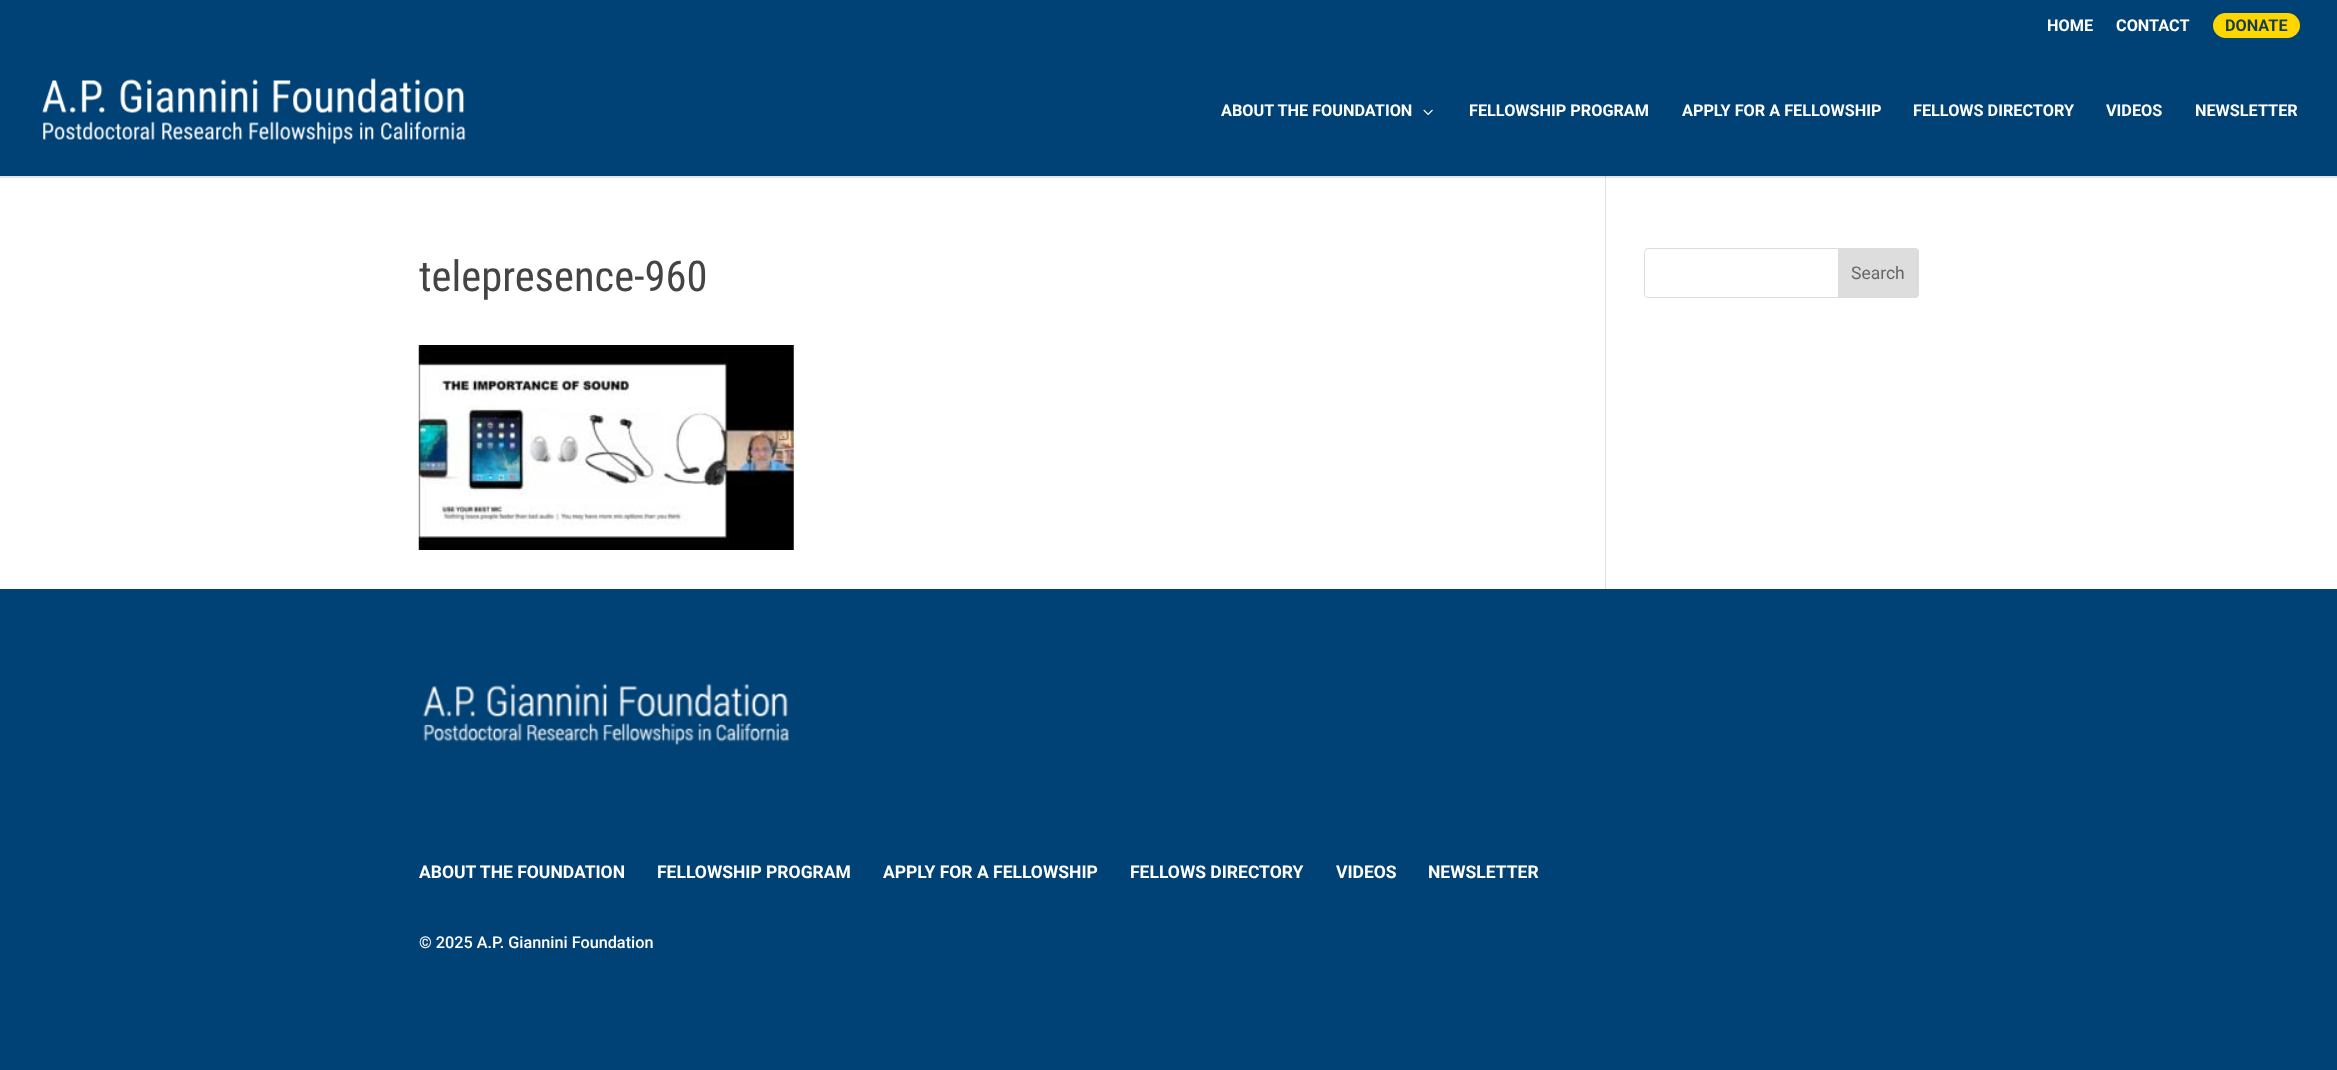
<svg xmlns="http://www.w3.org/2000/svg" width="2337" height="1070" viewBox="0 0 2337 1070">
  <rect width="100%" height="100%" fill="#004275"/>
  <text x="2047" y="31" font-family="Roboto" font-size="16.25" font-weight="bold" fill="#ffffff">HOME</text>
  <text x="2116" y="31" font-family="Roboto" font-size="16.25" font-weight="bold" fill="#ffffff">CONTACT</text>
  <rect x="2213" y="13" width="87" height="25" rx="12.5" fill="#ffd700"/>
  <text x="2225" y="31" font-family="Roboto" font-size="16.25" font-weight="bold" fill="#183d4a">DONATE</text>
  <rect x="0" y="176" width="2337" height="413" fill="#ffffff"/>
  <rect x="1605" y="175" width="1" height="414" fill="#e2e2e2"/>
  <path d="M0 176V178H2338V48V176Z" fill="#000000" fill-opacity="0.1"/>
  <rect x="1605" y="175" width="1" height="1" fill="#004275"/>
  <image x="42" y="78" width="424" height="66" href="img1.png"/>
  <text x="1221" y="116" font-family="Roboto" font-size="16.25" font-weight="bold" fill="#ffffff">ABOUT THE FOUNDATION</text>
  <image x="1423" y="109" width="10" height="6" href="img2.png"/>
  <text x="1469" y="116" font-family="Roboto" font-size="16.25" font-weight="bold" fill="#ffffff">FELLOWSHIP PROGRAM</text>
  <text x="1682" y="116" font-family="Roboto" font-size="16.25" font-weight="bold" fill="#ffffff">APPLY FOR A FELLOWSHIP</text>
  <text x="1913" y="116" font-family="Roboto" font-size="16.25" font-weight="bold" fill="#ffffff">FELLOWS DIRECTORY</text>
  <text x="2106" y="116" font-family="Roboto" font-size="16.25" font-weight="bold" fill="#ffffff">VIDEOS</text>
  <text x="2195" y="116" font-family="Roboto" font-size="16.25" font-weight="bold" fill="#ffffff">NEWSLETTER</text>
  <text x="419" y="291" font-family="Roboto Condensed" font-size="42.5" fill="#444444">telepresence-960</text>
  <image x="418" y="345" width="376" height="205" href="img3.png"/>
  <rect x="1644.5" y="248.5" width="274" height="49" rx="3.5" fill="none" stroke="#dddddd"/>
  <path d="M1838.5 248.5H1915C1917 248.5 1918.5 250 1918.5 252V294C1918.5 296 1917 297.5 1915 297.5H1838.5Z" fill="#dddddd" stroke="#dddddd"/>
  <text x="1851" y="279" font-family="Roboto" font-size="17.5" fill="#666666">Search</text>
  <image x="422" y="683" width="368" height="62" href="img4.png"/>
  <text x="419" y="878" font-family="Roboto" font-size="17.5" font-weight="bold" fill="#ffffff">ABOUT THE FOUNDATION</text>
  <text x="657" y="878" font-family="Roboto" font-size="17.5" font-weight="bold" fill="#ffffff">FELLOWSHIP PROGRAM</text>
  <text x="883" y="878" font-family="Roboto" font-size="17.5" font-weight="bold" fill="#ffffff">APPLY FOR A FELLOWSHIP</text>
  <text x="1130" y="878" font-family="Roboto" font-size="17.5" font-weight="bold" fill="#ffffff">FELLOWS DIRECTORY</text>
  <text x="1336" y="878" font-family="Roboto" font-size="17.5" font-weight="bold" fill="#ffffff">VIDEOS</text>
  <text x="1428" y="878" font-family="Roboto" font-size="17.5" font-weight="bold" fill="#ffffff">NEWSLETTER</text>
  <text x="419" y="948" font-family="Roboto" font-size="16.25" font-weight="500" fill="#ffffff">© 2025 A.P. Giannini Foundation</text>
</svg>
